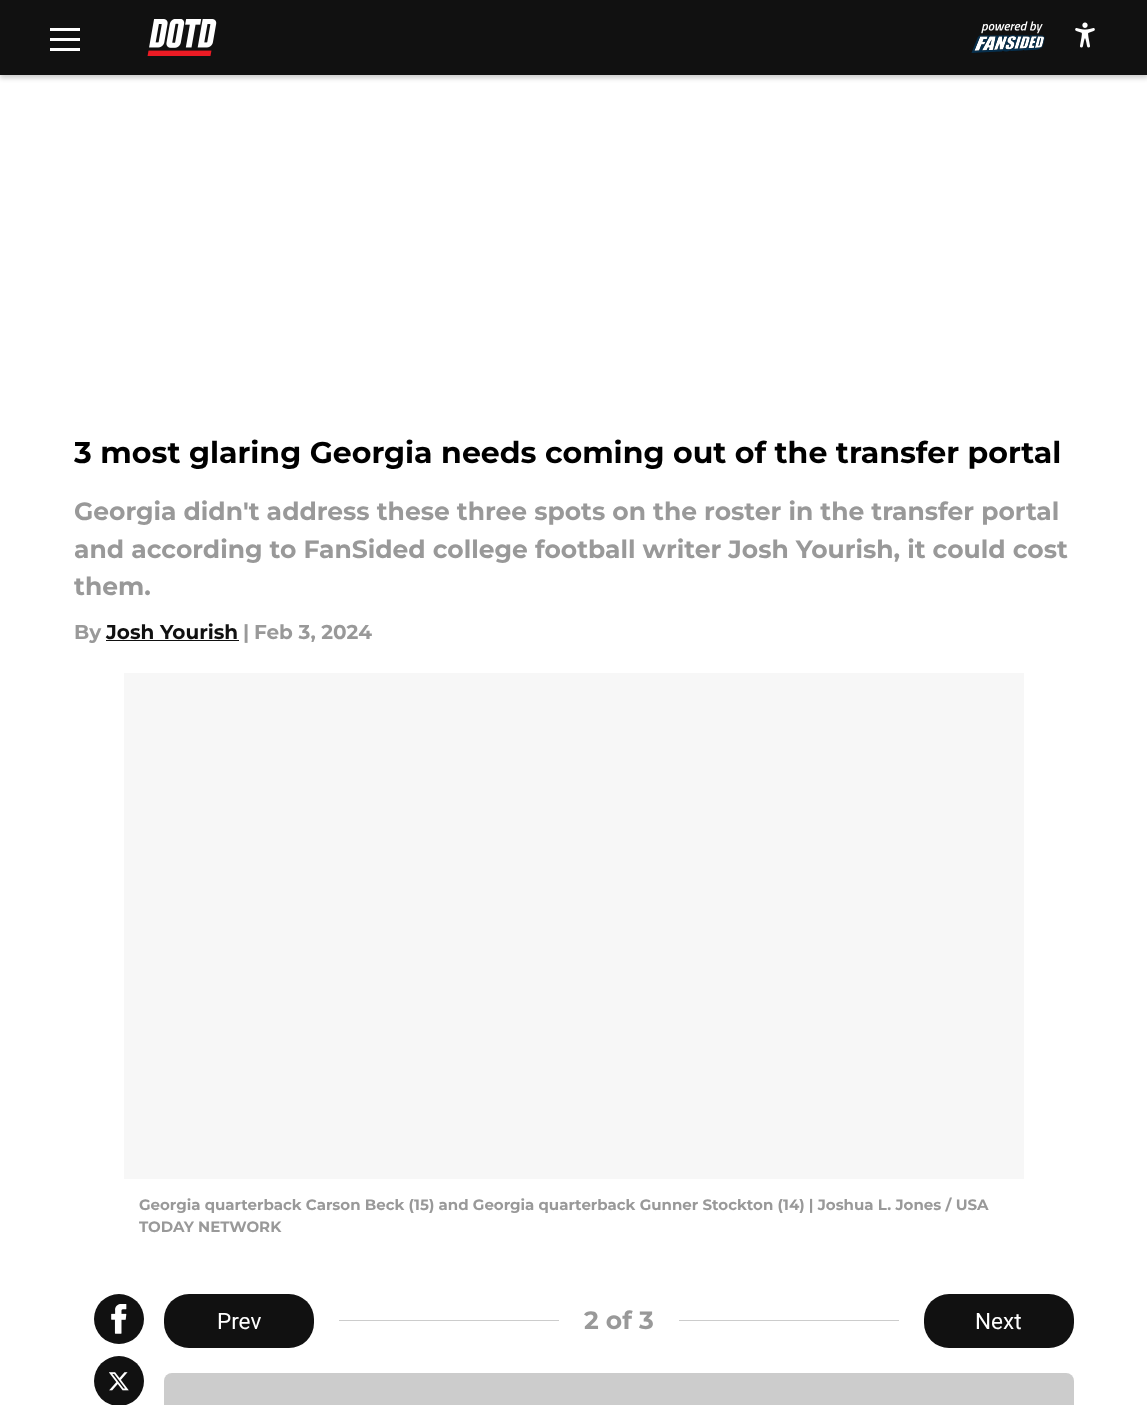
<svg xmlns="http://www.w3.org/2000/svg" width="1147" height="1405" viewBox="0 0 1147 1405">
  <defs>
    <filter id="blur1" x="-50%" y="-200%" width="200%" height="500%"><feGaussianBlur stdDeviation="2.5"/></filter>
  </defs>
  <rect width="100%" height="100%" fill="#ffffff"/>
  <rect x="0" y="3" width="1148" height="75" fill="#000000" fill-opacity="0.2" filter="url(#blur1)"/>
  <rect x="0" y="0" width="1147" height="75" fill="#111111"/>
  <rect x="50" y="28" width="30" height="3" fill="#ffffff"/>
  <rect x="50" y="38" width="30" height="3" fill="#ffffff"/>
  <rect x="50" y="48" width="30" height="3" fill="#ffffff"/>
  <image x="147" y="19" width="70" height="37" href="img1.png"/>
  <image x="971" y="21" width="74" height="32" href="img2.png"/>
  <image x="1075" y="22" width="20" height="26" href="img3.png"/>
  <text x="74" y="463" font-family="Montserrat" font-size="30" font-weight="100" fill="#000000">3 most glaring Georgia needs coming out of the transfer portal</text>
  <text x="74" y="520" font-family="Montserrat" font-size="25" font-weight="100" fill="#999999">Georgia didn't address these three spots on the roster in the transfer portal</text>
  <text x="74" y="558" font-family="Montserrat" font-size="25" font-weight="100" fill="#999999">and according to FanSided college football writer Josh Yourish, it could cost</text>
  <text x="74" y="595" font-family="Montserrat" font-size="25" font-weight="100" fill="#999999">them.</text>
  <text x="74" y="639" font-family="Montserrat" font-size="20" font-weight="100" fill="#999999">By</text>
  <text x="106" y="639" font-family="Montserrat" font-size="20" font-weight="100" fill="#111111">Josh Yourish</text>
  <rect x="106" y="640" width="133" height="1" fill="#111111"/>
  <text x="243" y="639" font-family="Montserrat" font-size="20" font-weight="100" fill="#999999">|</text>
  <text x="254" y="639" font-family="Montserrat" font-size="20" font-weight="100" fill="#999999">Feb 3, 2024</text>
  <rect x="124" y="673" width="900" height="506" fill="#f7f7f7"/>
  <text x="139" y="1210" font-family="Montserrat" font-size="15" font-weight="100" fill="#999999">Georgia quarterback Carson Beck (15) and Georgia quarterback Gunner Stockton (14) | Joshua L. Jones / USA</text>
  <text x="139" y="1232" font-family="Montserrat" font-size="15" font-weight="100" fill="#999999">TODAY NETWORK</text>
  <circle cx="119" cy="1319" r="25" fill="#111111"/>
  <image x="111" y="1304" width="16" height="30" href="img4.png"/>
  <circle cx="119" cy="1381" r="25" fill="#111111"/>
  <image x="109" y="1372" width="20" height="19" href="img5.png"/>
  <rect x="164" y="1294" width="150" height="54" rx="25" fill="#111111"/>
  <text x="217" y="1329" font-family="Roboto" font-size="22.5" fill="#ffffff">Prev</text>
  <rect x="339" y="1320" width="220" height="1" fill="#cccccc"/>
  <text x="584" y="1329" font-family="Montserrat" font-size="25" font-weight="100" fill="#999999">2 of 3</text>
  <rect x="679" y="1320" width="220" height="1" fill="#cccccc"/>
  <rect x="924" y="1294" width="150" height="54" rx="25" fill="#111111"/>
  <text x="975" y="1329" font-family="Roboto" font-size="22.5" fill="#ffffff">Next</text>
  <rect x="164" y="1373" width="910" height="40" rx="8" fill="#cccccc"/>
</svg>
